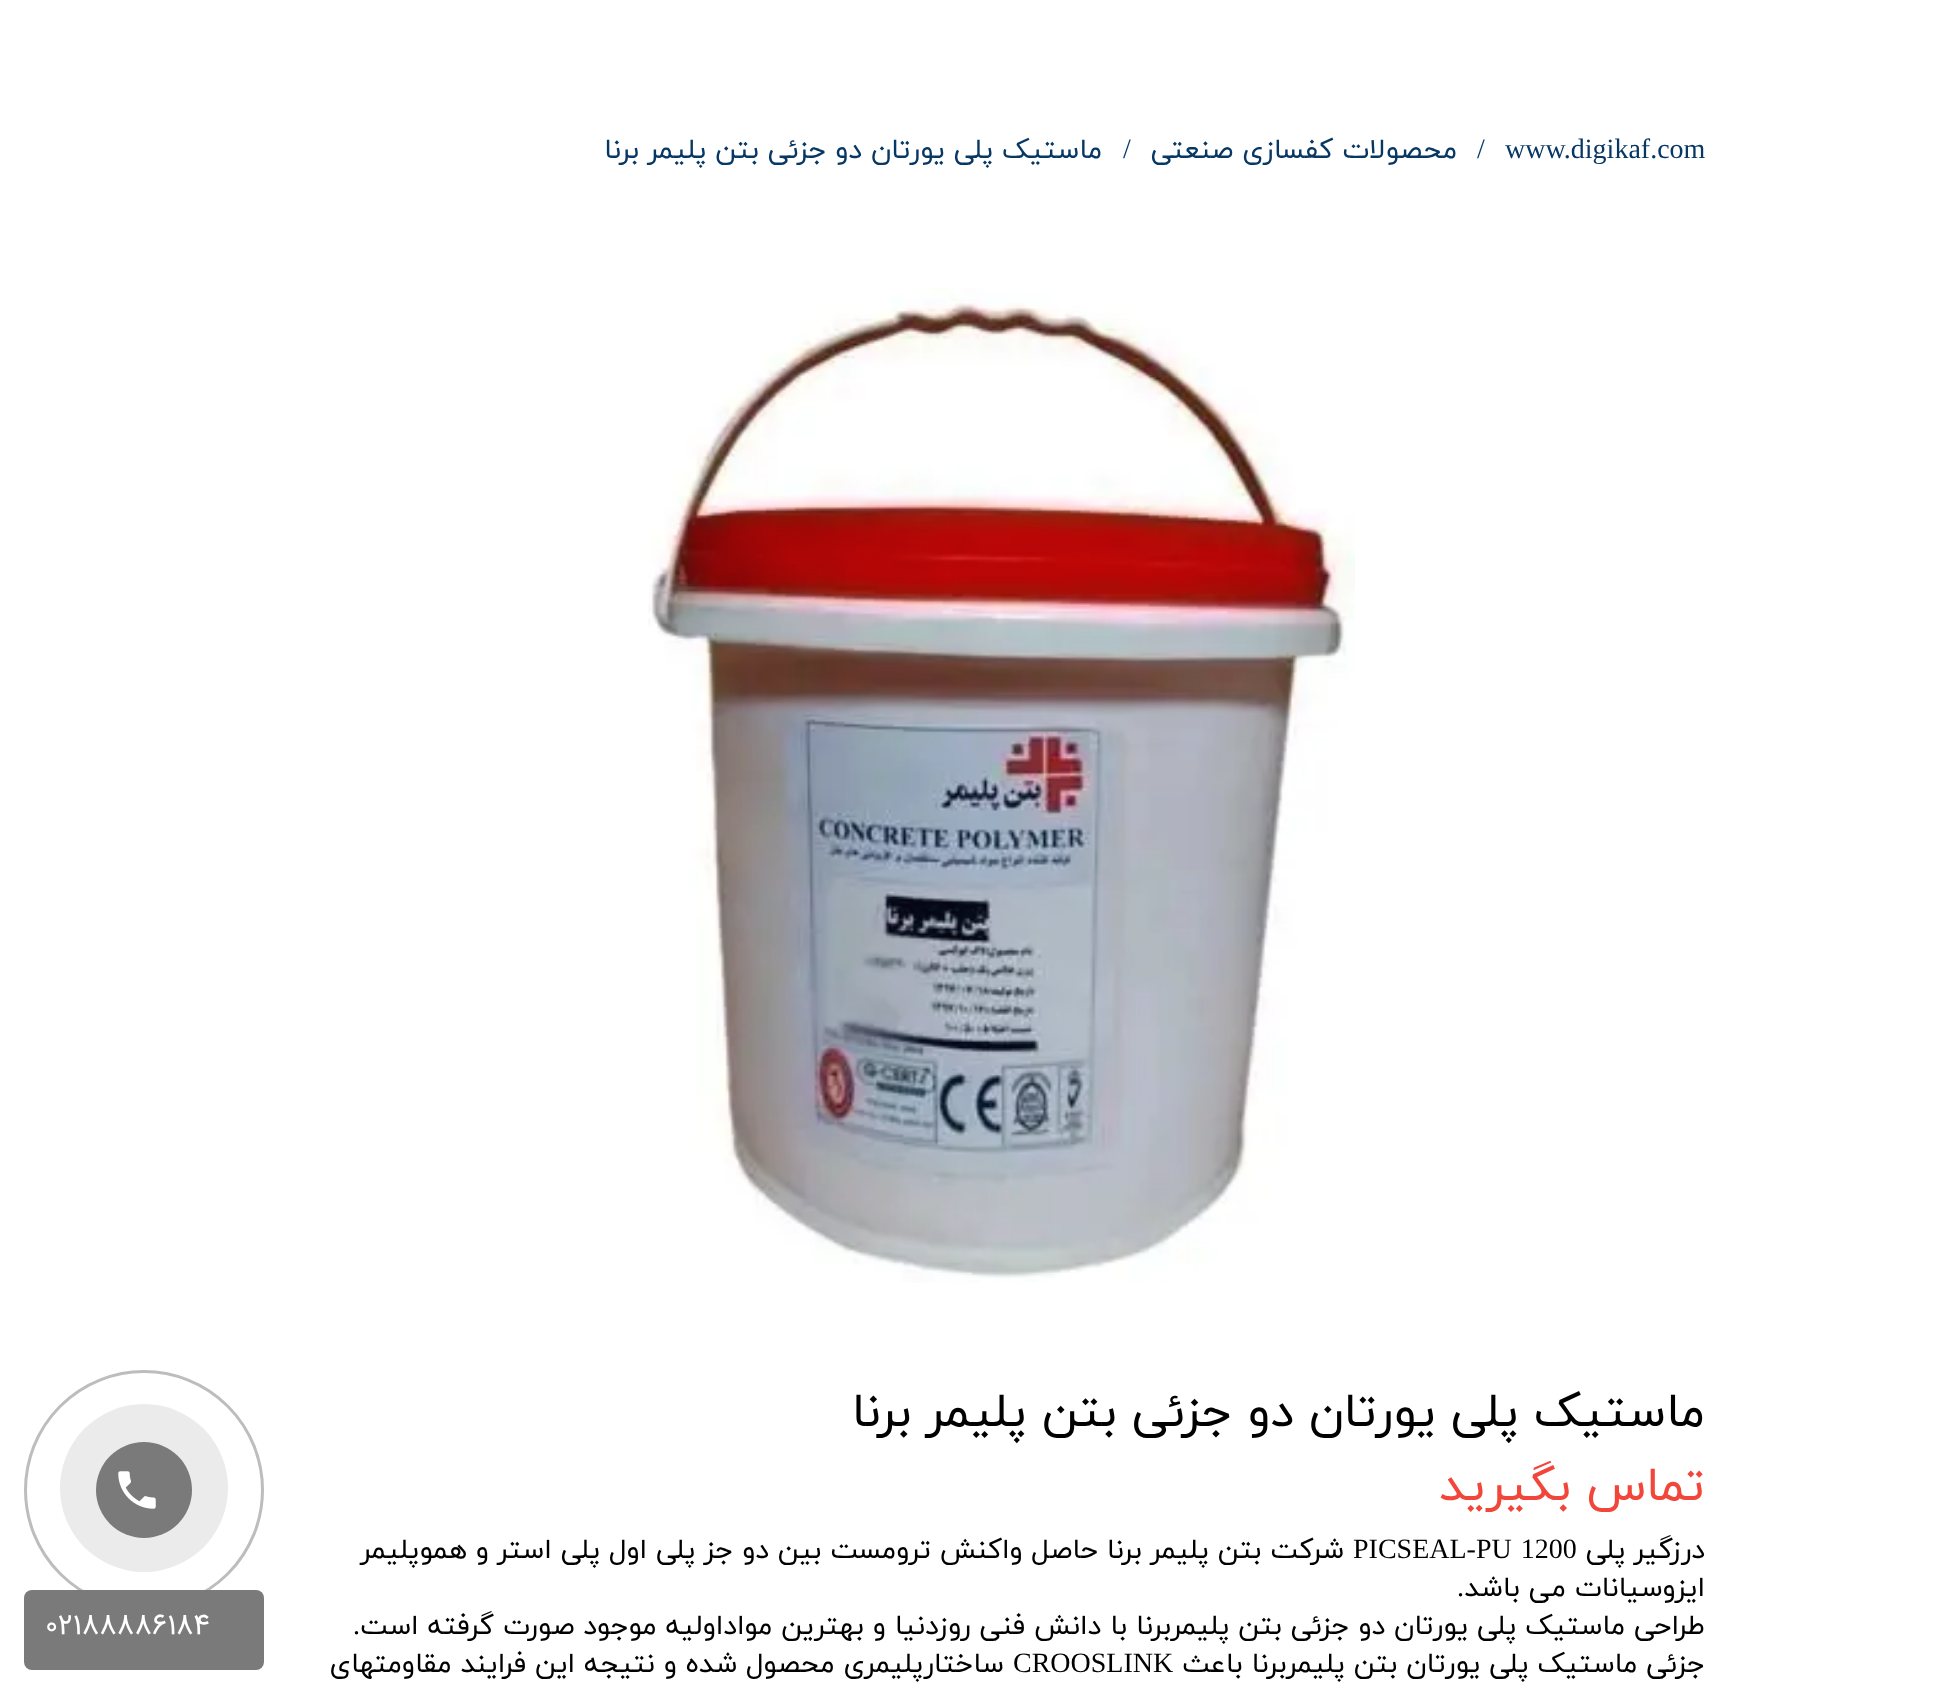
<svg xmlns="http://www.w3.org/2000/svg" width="1936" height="1705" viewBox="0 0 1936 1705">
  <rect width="100%" height="100%" fill="#ffffff"/>
  <text x="1505" y="158" font-family="Liberation Serif" font-size="28" fill="#073763">www.digikaf.com</text>
  <text x="1477" y="158" font-family="Liberation Serif" font-size="28" letter-spacing="1" fill="#083d6d">/</text>
  <text x="1457" y="158" font-family="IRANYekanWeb" font-size="28" direction="rtl" fill="#073763">محصولات کفسازی صنعتی</text>
  <text x="1123" y="158" font-family="Liberation Serif" font-size="28" letter-spacing="1" fill="#083d6d">/</text>
  <text x="1102" y="158" font-family="IRANYekanWeb" font-size="28" direction="rtl" fill="#073763">ماستیک پلی یورتان دو جزئی بتن پلیمر برنا</text>
  <image x="648" y="288" width="707" height="995" href="img1.png"/>
  <text x="1705" y="1426" font-family="IRANYekanWeb" font-size="48" direction="rtl" fill="#000000">ماستیک پلی یورتان دو جزئی بتن پلیمر برنا</text>
  <text x="1705" y="1500" font-family="IRANYekanWeb" font-size="48" direction="rtl" fill="#f14639">تماس بگیرید</text>
  <text x="1705" y="1558" font-family="IRANYekanWeb" font-size="28" direction="rtl" fill="#000000">درزگیر پلی</text>
  <text x="1353" y="1558" word-spacing="2" font-family="Liberation Serif" font-size="28" fill="#000000">PICSEAL-PU 1200</text>
  <text x="1344" y="1558" font-family="IRANYekanWeb" font-size="28" direction="rtl" fill="#000000">شرکت بتن پلیمر برنا حاصل واکنش ترومست بین دو جز پلی اول پلی استر و هموپلیمر</text>
  <text x="1705" y="1596" font-family="IRANYekanWeb" font-size="28" direction="rtl" fill="#000000">ایزوسیانات می باشد</text>
  <text x="1464" y="1596" font-family="Liberation Serif" font-size="28" direction="rtl" fill="#000000">.</text>
  <text x="1705" y="1634" font-family="IRANYekanWeb" font-size="28" direction="rtl" fill="#000000">طراحی ماستیک پلی یورتان دو جزئی بتن پلیمربرنا با دانش فنی روزدنیا و بهترین مواداولیه موجود صورت گرفته است</text>
  <text x="360" y="1634" font-family="Liberation Serif" font-size="28" direction="rtl" fill="#000000">.</text>
  <text x="1705" y="1672" font-family="IRANYekanWeb" font-size="28" direction="rtl" fill="#000000">جزئی ماستیک پلی یورتان بتن پلیمربرنا باعث</text>
  <text x="1013" y="1672" font-family="Liberation Serif" font-size="28" fill="#000000">CROOSLINK</text>
  <text x="1004" y="1672" font-family="IRANYekanWeb" font-size="28" direction="rtl" fill="#000000">ساختارپلیمری محصول شده و نتیجه این فرایند مقاومتهای</text>
  <circle cx="144" cy="1490" r="118.5" fill="none" stroke="#bdbdbd" stroke-width="3"/>
  <circle cx="144" cy="1488" r="84" fill="#ebebeb"/>
  <circle cx="144" cy="1490" r="48" fill="#7a7a7a"/>
  <image x="118" y="1471" width="38" height="38" href="img2.png"/>
  <rect x="24" y="1590" width="240" height="80" rx="8" fill="#7a7a7a"/>
  <text x="45" y="1634" font-family="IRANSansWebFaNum" font-size="30" fill="#ffffff">02188886184</text>
</svg>
